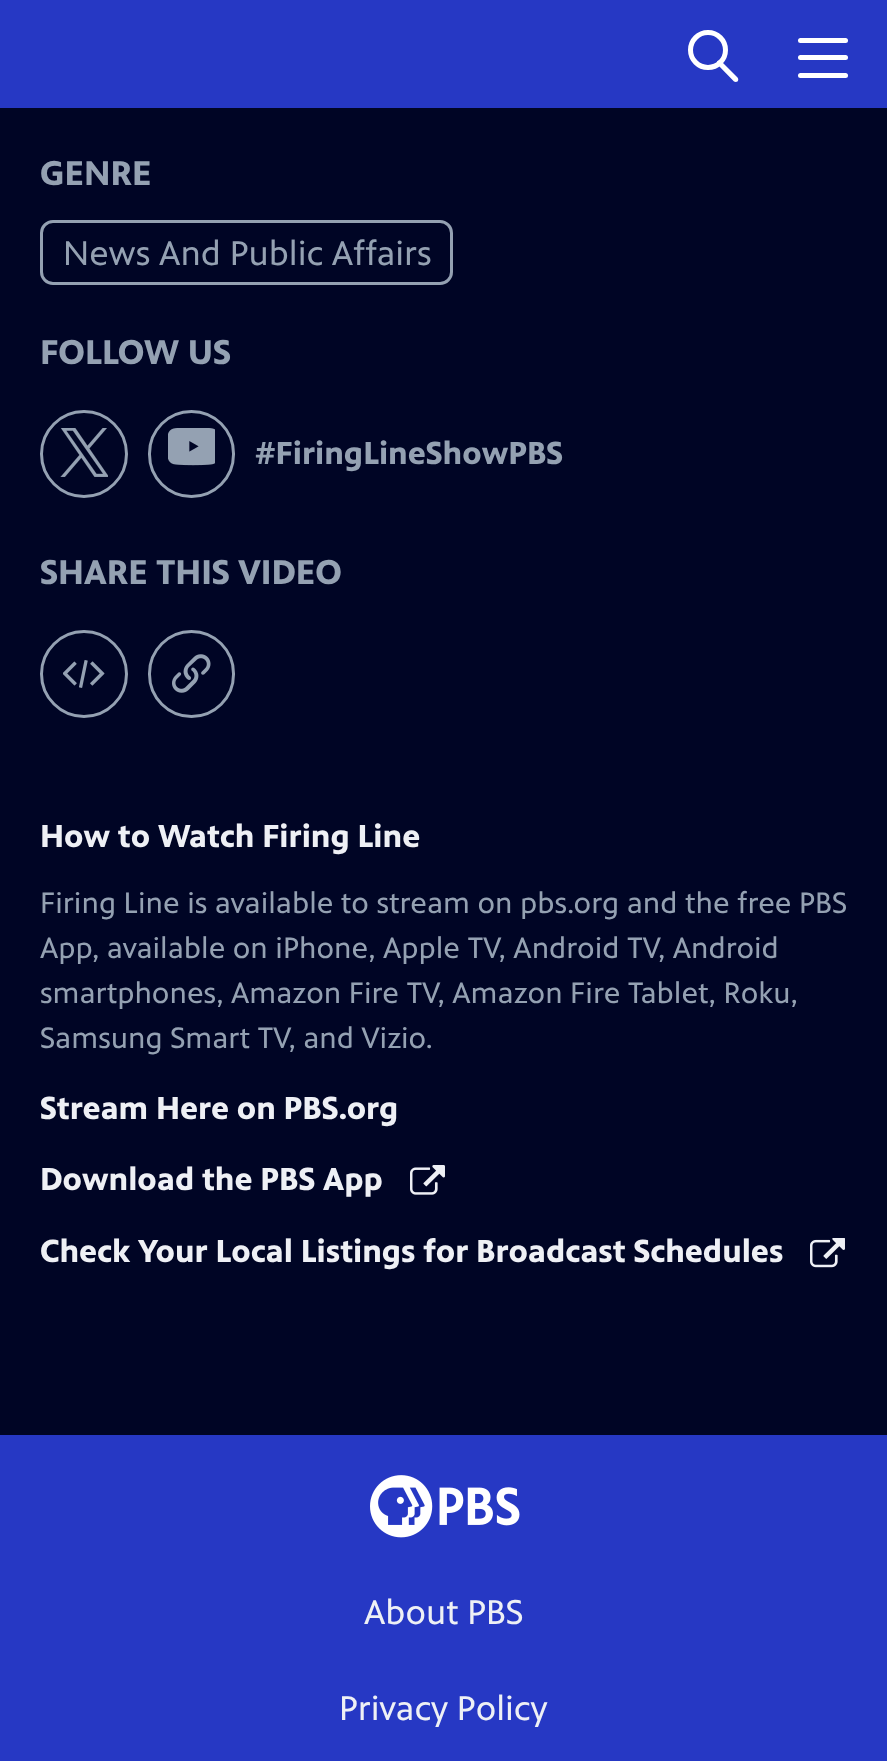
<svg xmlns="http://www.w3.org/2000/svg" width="887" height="1761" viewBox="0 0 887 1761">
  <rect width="100%" height="100%" fill="#000525"/>
  <rect x="0" y="0" width="887" height="108" fill="#2638c4"/>
  <circle cx="708" cy="50" r="17.5" fill="none" stroke="#ffffff" stroke-width="5"/>
  <path d="M734 81.5L717.5 64.5C716.5 63.5 716.5 62 717.5 61C718.5 60 720 60 721 61L737.5 77.5C738.5 78.5 738.5 80.5 737.5 81.5C736.5 82 735 82 734 81.5Z" fill="#ffffff"/>
  <rect x="798" y="38" width="50" height="5" rx="2.5" fill="#ffffff"/>
  <rect x="798" y="55" width="50" height="5" rx="2.5" fill="#ffffff"/>
  <rect x="798" y="73" width="50" height="5" rx="2.5" fill="#ffffff"/>
  <text x="40" y="185" font-family="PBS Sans" font-size="35" font-weight="bold" fill="#94a1b2">GENRE</text>
  <rect x="41.5" y="221.5" width="410" height="62" rx="11.5" fill="none" stroke="#94a1b2" stroke-width="3"/>
  <text x="63" y="265" font-family="PBS Sans" font-size="35" fill="#94a1b2">News And Public Affairs</text>
  <text x="40" y="364" font-family="PBS Sans" font-size="35" font-weight="bold" fill="#94a1b2">FOLLOW US</text>
  <circle cx="84" cy="454" r="42.5" fill="none" stroke="#94a1b2" stroke-width="3"/>
  <image x="60" y="428" width="48" height="49" href="img1.png"/>
  <rect x="149.5" y="411.5" width="84" height="85" rx="42" fill="none" stroke="#94a1b2" stroke-width="3"/>
  <image x="168" y="428" width="47" height="38" href="img2.png"/>
  <text x="255" y="464" font-family="PBS Sans" font-size="32.5" font-weight="bold" fill="#94a1b2">#FiringLineShowPBS</text>
  <text x="40" y="584" font-family="PBS Sans" font-size="35" font-weight="bold" fill="#94a1b2">SHARE THIS VIDEO</text>
  <circle cx="84" cy="674" r="42.5" fill="none" stroke="#94a1b2" stroke-width="3"/>
  <image x="63" y="660" width="42" height="28" href="img3.png"/>
  <rect x="149.5" y="631.5" width="84" height="85" rx="42" fill="none" stroke="#94a1b2" stroke-width="3"/>
  <image x="172" y="654" width="39" height="39" href="img4.png"/>
  <text x="40" y="847" font-family="PBS Sans" font-size="32.5" font-weight="bold" fill="#eef0f5">How to Watch Firing Line</text>
  <text x="40" y="913" font-family="PBS Sans" font-size="30" fill="#94a1b2">Firing Line is available to stream on pbs.org and the free PBS</text>
  <text x="40" y="958" font-family="PBS Sans" font-size="30" fill="#94a1b2">App, available on iPhone, Apple TV, Android TV, Android</text>
  <text x="40" y="1003" font-family="PBS Sans" font-size="30" fill="#94a1b2">smartphones, Amazon Fire TV, Amazon Fire Tablet, Roku,</text>
  <text x="40" y="1048" font-family="PBS Sans" font-size="30" fill="#94a1b2">Samsung Smart TV, and Vizio.</text>
  <text x="40" y="1119" font-family="PBS Sans" font-size="32.5" font-weight="bold" fill="#eef0f5">Stream Here on PBS.org</text>
  <text x="40" y="1190" font-family="PBS Sans" font-size="32.5" font-weight="bold" fill="#eef0f5">Download the PBS App</text>
  <image x="410" y="1165" width="35" height="30" href="img5.png"/>
  <text x="40" y="1262" font-family="PBS Sans" font-size="32.5" font-weight="bold" fill="#eef0f5">Check Your Local Listings for Broadcast Schedules</text>
  <image x="810" y="1238" width="35" height="30" href="img6.png"/>
  <rect x="0" y="1435" width="887" height="326" fill="#2638c4"/>
  <image x="370" y="1475" width="150" height="63" href="img7.png"/>
  <text x="364" y="1624" font-family="PBS Sans" font-size="35" fill="#eef0f5">About PBS</text>
  <text x="339" y="1720" font-family="PBS Sans" font-size="35" fill="#eef0f5">Privacy Policy</text>
</svg>
